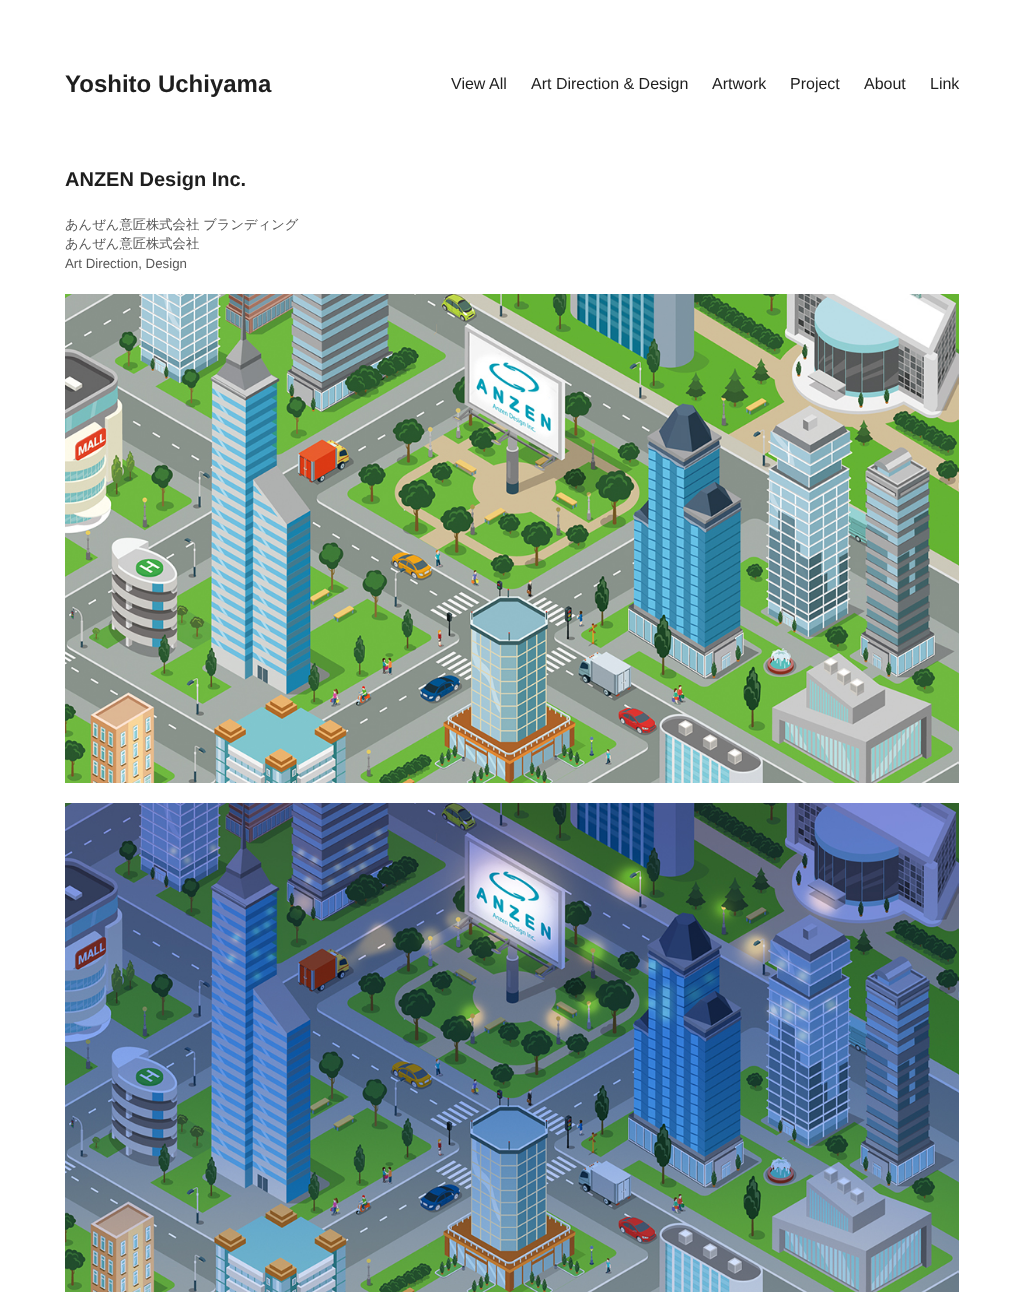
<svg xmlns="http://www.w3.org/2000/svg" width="1024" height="1303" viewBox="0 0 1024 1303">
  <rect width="100%" height="100%" fill="#ffffff"/>
  <text x="65" y="92" font-family="Liberation Sans" font-size="24" font-weight="bold" fill="#1e1e1e">Yoshito Uchiyama</text>
  <text x="451" y="89" font-family="Liberation Sans" font-size="16" fill="#1e1e1e">View All</text>
  <text x="531" y="89" font-family="Liberation Sans" font-size="16" fill="#1e1e1e">Art Direction &amp; Design</text>
  <text x="712" y="89" font-family="Liberation Sans" font-size="16" fill="#1e1e1e">Artwork</text>
  <text x="790" y="89" font-family="Liberation Sans" font-size="16" fill="#1e1e1e">Project</text>
  <text x="864" y="89" font-family="Liberation Sans" font-size="16" fill="#1e1e1e">About</text>
  <text x="930" y="89" font-family="Liberation Sans" font-size="16" fill="#1e1e1e">Link</text>
  <text x="65" y="186" font-family="Liberation Sans" font-size="20" font-weight="bold" fill="#1e1e1e">ANZEN Design Inc.</text>
  <text x="65" y="229" font-family="WenQuanYi Zen Hei" font-size="13.3" font-weight="500" fill="#585858">あんぜん意匠株式会社 ブランディング</text>
  <text x="65" y="248" font-family="WenQuanYi Zen Hei" font-size="13.3" font-weight="500" fill="#585858">あんぜん意匠株式会社</text>
  <text x="65" y="268" font-family="Liberation Sans" font-size="13.3" fill="#585858">Art Direction, Design</text>
  <image x="65" y="294" width="894" height="489" href="img1.png"/>
  <image x="65" y="803" width="894" height="489" href="img2.png"/>
</svg>
